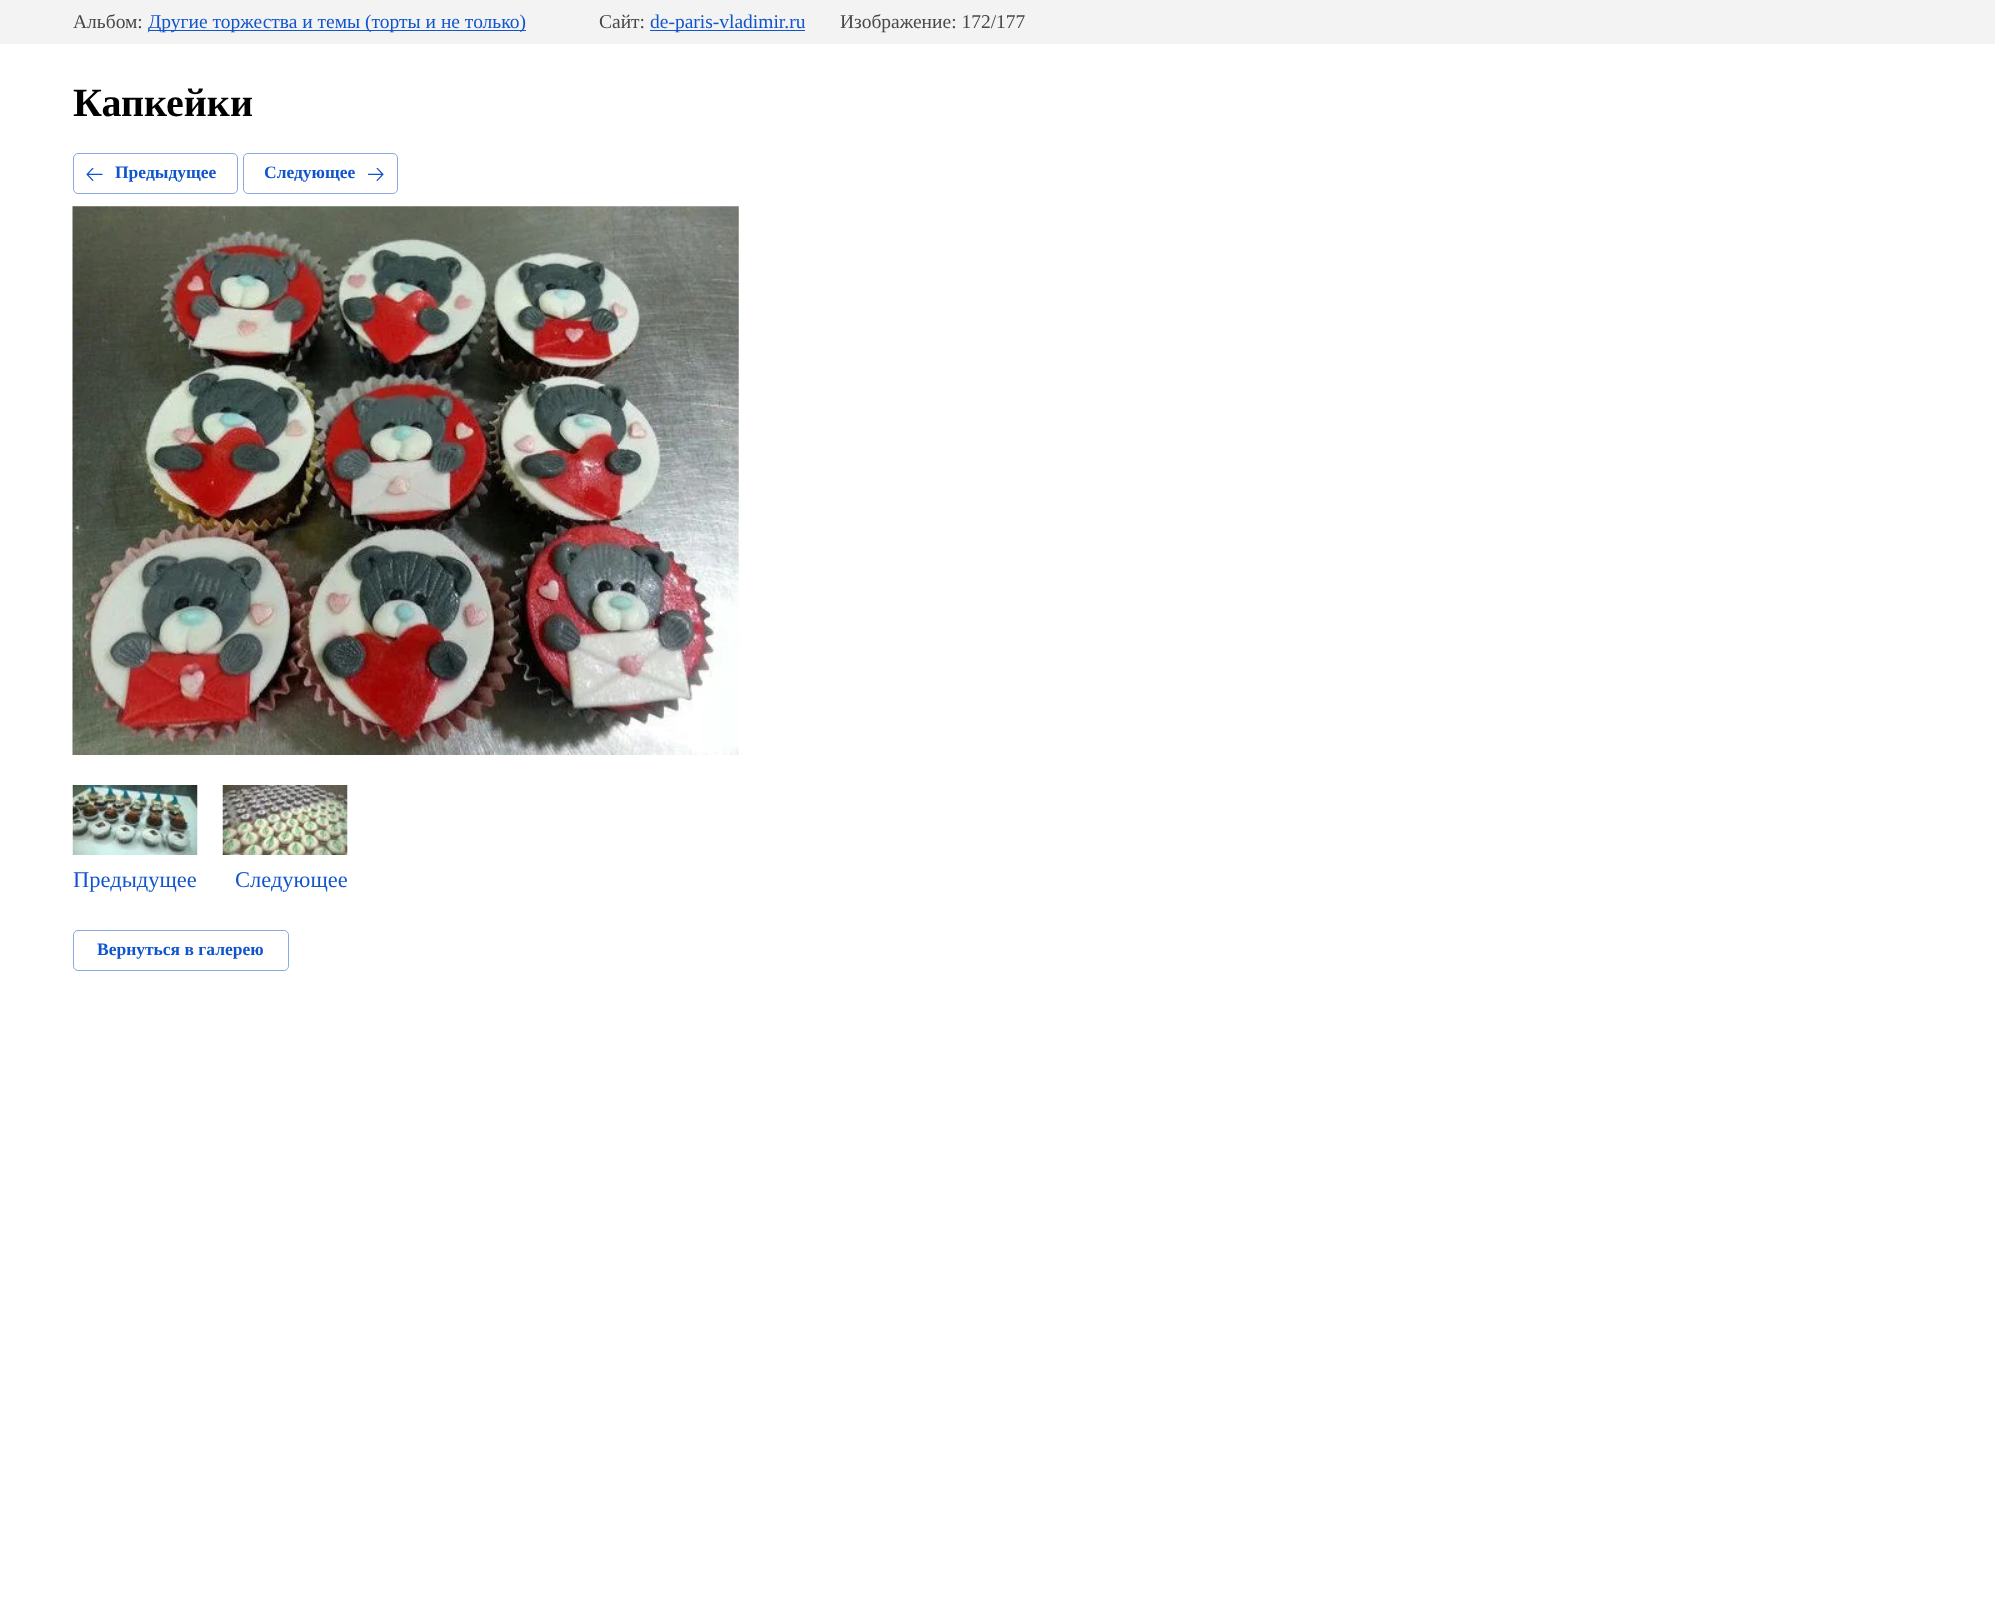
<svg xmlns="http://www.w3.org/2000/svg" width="1995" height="1609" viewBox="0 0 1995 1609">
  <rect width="100%" height="100%" fill="#ffffff"/>
  <rect x="0" y="0" width="1995" height="44" fill="#f3f3f3"/>
  <text x="73" y="28" font-family="Liberation Serif" font-size="19.5" fill="#484848">Альбом:</text>
  <rect x="148" y="30" width="378" height="1" fill="#1155cc"/>
  <text x="148" y="28" font-family="Liberation Serif" font-size="19.5" fill="#1155cc">Другие торжества и темы (торты и не только)</text>
  <text x="599" y="28" font-family="Liberation Serif" font-size="19.5" fill="#484848">Сайт:</text>
  <rect x="650" y="30" width="155" height="1" fill="#1155cc"/>
  <text x="650" y="28" font-family="Liberation Serif" font-size="19.5" fill="#1155cc">de-paris-vladimir.ru</text>
  <text x="840" y="28" font-family="Liberation Serif" font-size="19.5" fill="#484848">Изображение: 172/177</text>
  <text x="73" y="116" font-family="Liberation Serif" font-size="40" font-weight="bold" fill="#000000">Капкейки</text>
  <rect x="73.5" y="153.5" width="164" height="40" rx="4.5" fill="none" stroke="#88aae6"/>
  <image x="86" y="168" width="17" height="13" href="img1.png"/>
  <text x="115" y="178" font-family="Liberation Serif" font-size="17.5" font-weight="bold" fill="#1155cc">Предыдущее</text>
  <rect x="243.5" y="153.5" width="154" height="40" rx="4.5" fill="none" stroke="#88aae6"/>
  <text x="264" y="178" font-family="Liberation Serif" font-size="17.5" font-weight="bold" fill="#1155cc">Следующее</text>
  <image x="368" y="168" width="16" height="13" href="img2.png"/>
  <image x="72" y="206" width="667" height="549" href="img3.png"/>
  <image x="72" y="785" width="126" height="70" href="img4.png"/>
  <text x="73" y="887" font-family="Liberation Serif" font-size="22.5" fill="#1155cc">Предыдущее</text>
  <image x="222" y="785" width="126" height="70" href="img5.png"/>
  <text x="235" y="887" font-family="Liberation Serif" font-size="22.5" fill="#1155cc">Следующее</text>
  <rect x="73.5" y="930.5" width="215" height="40" rx="4.5" fill="none" stroke="#88aae6"/>
  <text x="97" y="955" font-family="Liberation Serif" font-size="17.5" font-weight="bold" fill="#1155cc">Вернуться в галерею</text>
</svg>
